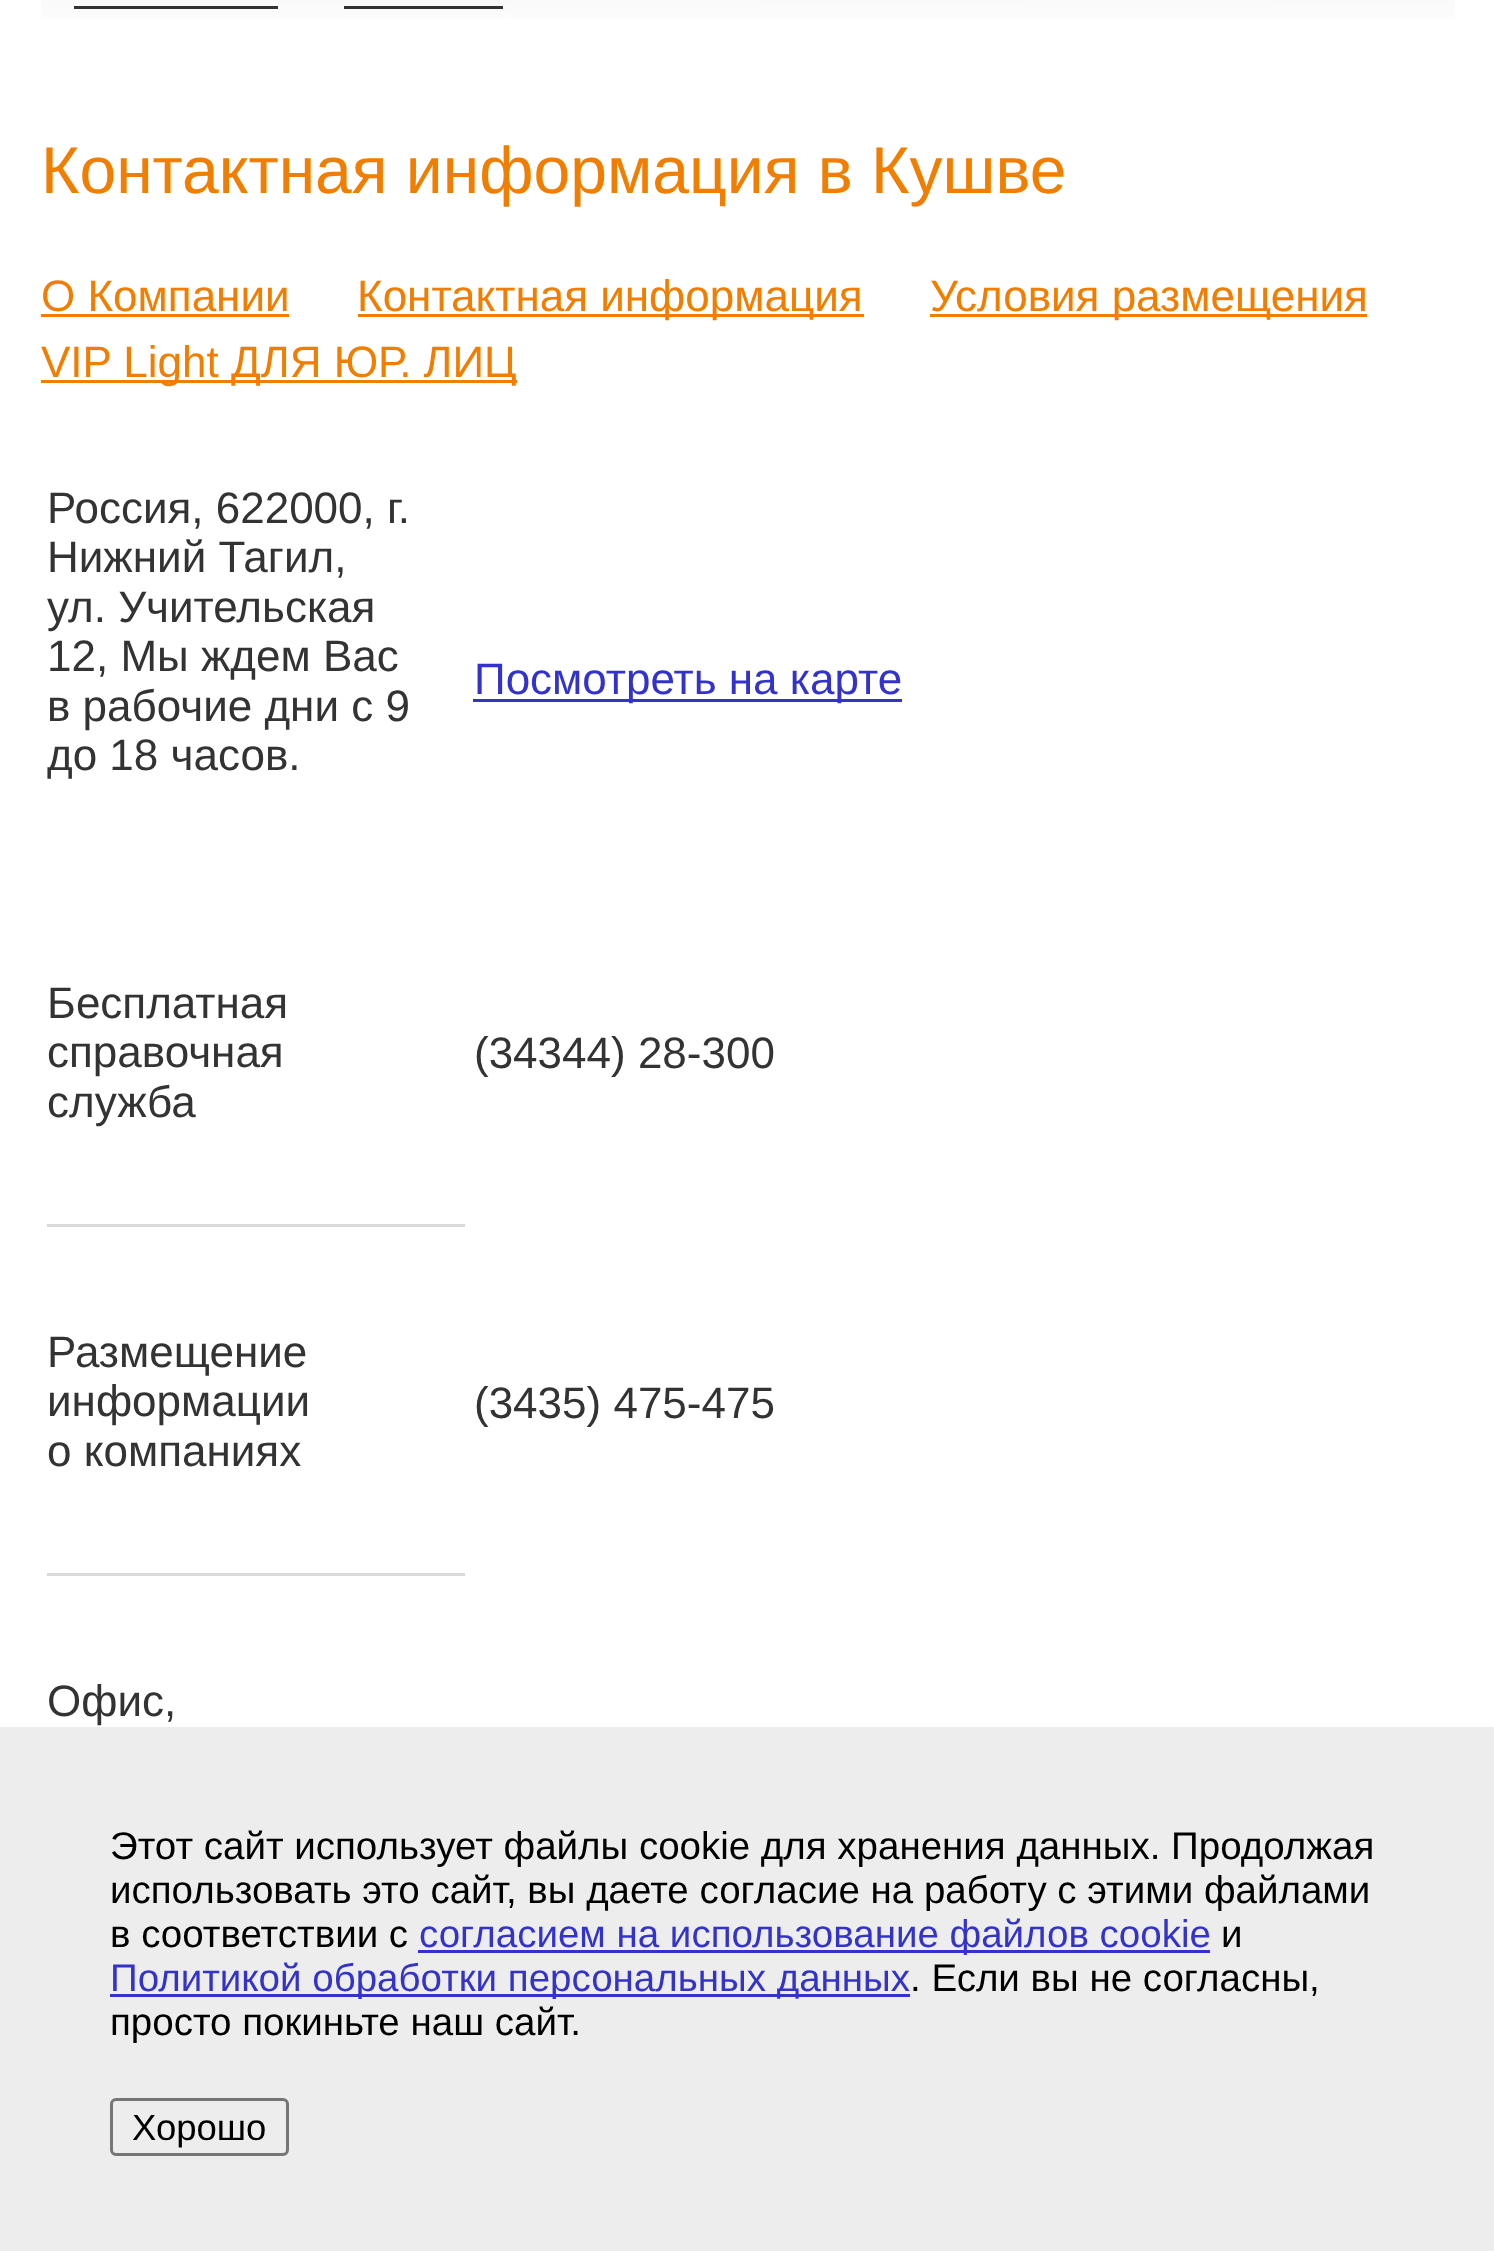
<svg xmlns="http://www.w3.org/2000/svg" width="1494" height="2251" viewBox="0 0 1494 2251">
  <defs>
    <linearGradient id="g1" gradientUnits="userSpaceOnUse" x1="748" y1="-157" x2="748" y2="36"><stop offset="0" stop-color="#e2e2e2"/><stop offset="1" stop-color="#ffffff"/></linearGradient>
  </defs>
  <rect width="100%" height="100%" fill="#ffffff"/>
  <rect x="41" y="0" width="1414" height="19" fill="url(#g1)"/>
  <rect x="74" y="6" width="204" height="3" fill="#333333"/>
  <rect x="344" y="6" width="159" height="3" fill="#333333"/>
  <text x="41" y="193" font-family="Liberation Sans" font-size="66" fill="#f17e00">Контактная информация в Кушве</text>
  <text x="41" y="311" font-family="Liberation Sans" font-size="44" fill="#f17e00">О Компании</text>
  <rect x="41" y="314" width="248" height="3" fill="#f17e00"/>
  <rect x="358" y="314" width="506" height="3" fill="#f17e00"/>
  <text x="357" y="311" font-family="Liberation Sans" font-size="44" fill="#f17e00">Контактная информация</text>
  <rect x="930" y="314" width="437" height="3" fill="#f17e00"/>
  <text x="930" y="311" font-family="Liberation Sans" font-size="44" fill="#f17e00">Условия размещения</text>
  <rect x="41" y="380" width="476" height="3" fill="#f17e00"/>
  <text x="41" y="377" font-family="Liberation Sans" font-size="44" fill="#f17e00">VIP Light ДЛЯ ЮР. ЛИЦ</text>
  <text x="47" y="523" font-family="Liberation Sans" font-size="44" fill="#333333">Россия, 622000, г.</text>
  <text x="47" y="572" font-family="Liberation Sans" font-size="44" fill="#333333">Нижний Тагил,</text>
  <text x="47" y="622" font-family="Liberation Sans" font-size="44" fill="#333333">ул. Учительская</text>
  <text x="47" y="671" font-family="Liberation Sans" font-size="44" fill="#333333">12, Мы ждем Вас</text>
  <text x="47" y="721" font-family="Liberation Sans" font-size="44" fill="#333333">в рабочие дни с 9</text>
  <text x="47" y="770" font-family="Liberation Sans" font-size="44" fill="#333333">до 18 часов.</text>
  <rect x="473" y="699" width="429" height="3" fill="#3333cc"/>
  <text x="474" y="694" font-family="Liberation Sans" font-size="44" fill="#3333cc">Посмотреть на карте</text>
  <rect x="47" y="1224" width="418" height="3" fill="#d9d9d9"/>
  <text x="47" y="1018" font-family="Liberation Sans" font-size="44" fill="#333333">Бесплатная</text>
  <text x="47" y="1067" font-family="Liberation Sans" font-size="44" fill="#333333">справочная</text>
  <text x="47" y="1117" font-family="Liberation Sans" font-size="44" fill="#333333">служба</text>
  <text x="474" y="1068" font-family="Liberation Sans" font-size="44" fill="#333333">(34344) 28-300</text>
  <rect x="47" y="1573" width="418" height="3" fill="#d9d9d9"/>
  <text x="47" y="1367" font-family="Liberation Sans" font-size="44" fill="#333333">Размещение</text>
  <text x="47" y="1416" font-family="Liberation Sans" font-size="44" fill="#333333">информации</text>
  <text x="47" y="1466" font-family="Liberation Sans" font-size="44" fill="#333333">о компаниях</text>
  <text x="474" y="1418" font-family="Liberation Sans" font-size="44" fill="#333333">(3435) 475-475</text>
  <text x="47" y="1716" font-family="Liberation Sans" font-size="44" fill="#333333">Офис,</text>
  <rect x="0" y="1727" width="1494" height="524" fill="#ededed"/>
  <text x="110" y="1859" font-family="Liberation Sans" font-size="38.5" fill="#000000">Этот сайт использует файлы cookie для хранения данных. Продолжая</text>
  <text x="110" y="1903" font-family="Liberation Sans" font-size="38.5" fill="#000000">использовать это сайт, вы даете согласие на работу с этими файлами</text>
  <text x="110" y="1947" font-family="Liberation Sans" font-size="38.5" fill="#000000">в соответствии с</text>
  <rect x="418" y="1950" width="792" height="3" fill="#3333cc"/>
  <text x="419" y="1947" font-family="Liberation Sans" font-size="38.5" fill="#3333cc">согласием на использование файлов cookie</text>
  <text x="1221" y="1947" font-family="Liberation Sans" font-size="38.5" fill="#000000">и</text>
  <rect x="110" y="1994" width="800" height="3" fill="#3333cc"/>
  <text x="110" y="1991" font-family="Liberation Sans" font-size="38.5" fill="#3333cc">Политикой обработки персональных данных</text>
  <text x="910" y="1991" font-family="Liberation Sans" font-size="38.5" fill="#000000">. Если вы не согласны,</text>
  <text x="110" y="2035" font-family="Liberation Sans" font-size="38.5" fill="#000000">просто покиньте наш сайт.</text>
  <rect x="111.5" y="2099.5" width="176" height="55" rx="4.5" fill="none" stroke="#767676" stroke-width="3"/>
  <text x="132" y="2140" font-family="Liberation Sans" font-size="36.5" fill="#000000">Хорошо</text>
</svg>
